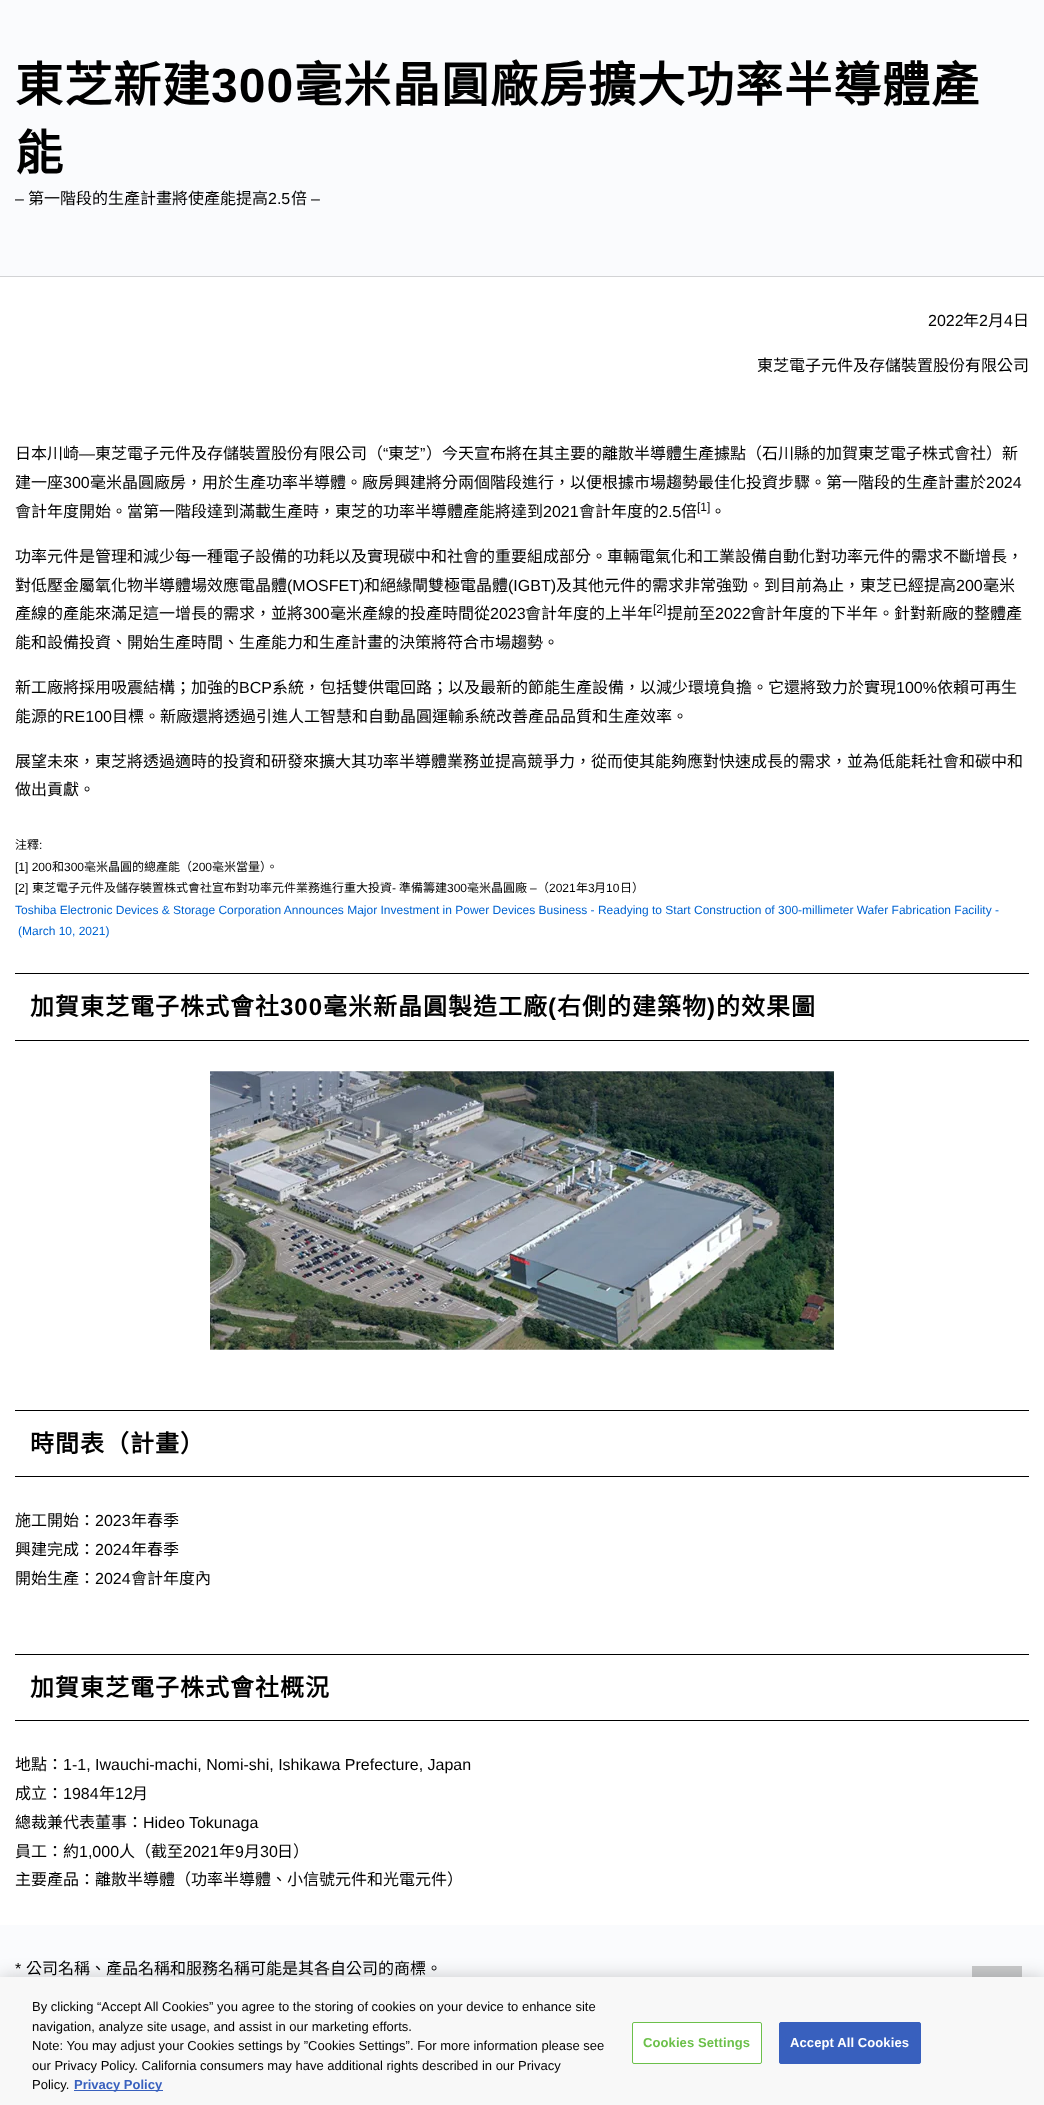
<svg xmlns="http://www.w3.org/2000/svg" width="1044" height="2105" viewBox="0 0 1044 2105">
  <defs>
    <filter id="blur1" x="-50%" y="-200%" width="200%" height="500%"><feGaussianBlur stdDeviation="9"/></filter>
  </defs>
  <rect width="100%" height="100%" fill="#ffffff"/>
  <rect x="0" y="0" width="1044" height="276" fill="#fafbfd"/>
  <rect x="0" y="276" width="1044" height="1" fill="#d2d3d5"/>
  <text x="15" y="102" font-family="Noto Sans CJK TC" font-size="48" font-weight="bold" letter-spacing="1" fill="#000000">東芝新建</text>
  <text x="211" y="102" font-family="Liberation Sans" font-size="48" font-weight="bold" letter-spacing="1" fill="#000000">300</text>
  <text x="294" y="102" font-family="Noto Sans CJK TC" font-size="48" font-weight="bold" letter-spacing="1" fill="#000000">毫米晶圓廠房擴大功率半導體產</text>
  <text x="15" y="170" font-family="Noto Sans CJK TC" font-size="48" font-weight="bold" letter-spacing="1" fill="#000000">能</text>
  <text x="15" y="204" font-family="Liberation Sans" font-size="16" fill="#000000">–</text>
  <text x="28" y="204" font-family="Noto Sans CJK TC" font-size="16" fill="#000000">第一階段的生產計畫將使產能提高</text>
  <text x="268" y="204" font-family="Liberation Sans" font-size="16" fill="#000000">2.5</text>
  <text x="291" y="204" font-family="Noto Sans CJK TC" font-size="16" fill="#000000">倍</text>
  <text x="311" y="204" font-family="Liberation Sans" font-size="16" fill="#000000">–</text>
  <text x="928" y="326" font-family="Liberation Sans" font-size="16" fill="#000000">2022</text>
  <text x="963" y="326" font-family="Noto Sans CJK TC" font-size="16" fill="#000000">年</text>
  <text x="979" y="326" font-family="Liberation Sans" font-size="16" fill="#000000">2</text>
  <text x="988" y="326" font-family="Noto Sans CJK TC" font-size="16" fill="#000000">月</text>
  <text x="1004" y="326" font-family="Liberation Sans" font-size="16" fill="#000000">4</text>
  <text x="1013" y="326" font-family="Noto Sans CJK TC" font-size="16" fill="#000000">日</text>
  <text x="757" y="371" font-family="Noto Sans CJK TC" font-size="16" fill="#000000">東芝電子元件及存儲裝置股份有限公司</text>
  <text x="15" y="459" font-family="Noto Sans CJK TC" font-size="16" fill="#000000">日本川崎</text>
  <text x="95" y="459" font-family="Noto Sans CJK TC" font-size="16" fill="#000000">東芝電子元件及存儲裝置股份有限公司（</text>
  <text x="383" y="459" font-family="Liberation Sans" font-size="16" fill="#000000">“</text>
  <text x="388" y="459" font-family="Noto Sans CJK TC" font-size="16" fill="#000000">東芝</text>
  <text x="420" y="459" font-family="Liberation Sans" font-size="16" fill="#000000">”</text>
  <text x="426" y="459" font-family="Noto Sans CJK TC" font-size="16" fill="#000000">）今天宣布將在其主要的離散半導體生產據點（石川縣的加賀東芝電子株式會社）新</text>
  <text x="79" y="459" font-family="Liberation Sans" font-size="16" fill="#000000">—</text>
  <text x="15" y="488" font-family="Noto Sans CJK TC" font-size="16" fill="#000000">建一座</text>
  <text x="63" y="488" font-family="Liberation Sans" font-size="16" fill="#000000">300</text>
  <text x="90" y="488" font-family="Noto Sans CJK TC" font-size="16" fill="#000000">毫米晶圓廠房，用於生產功率半導體。廠房興建將分兩個階段進行，以便根據市場趨勢最佳化投資步驟。第一階段的生產計畫於</text>
  <text x="986" y="488" font-family="Liberation Sans" font-size="16" fill="#000000">2024</text>
  <text x="15" y="517" font-family="Noto Sans CJK TC" font-size="16" fill="#000000">會計年度開始。當第一階段達到滿載生產時，東芝的功率半導體產能將達到</text>
  <text x="543" y="517" font-family="Liberation Sans" font-size="16" fill="#000000">2021</text>
  <text x="579" y="517" font-family="Noto Sans CJK TC" font-size="16" fill="#000000">會計年度的</text>
  <text x="659" y="517" font-family="Liberation Sans" font-size="16" fill="#000000">2.5</text>
  <text x="681" y="517" font-family="Noto Sans CJK TC" font-size="16" fill="#000000">倍</text>
  <text x="697" y="511" font-family="Liberation Sans" font-size="12" fill="#000000">[1]</text>
  <text x="710" y="517" font-family="Noto Sans CJK TC" font-size="16" fill="#000000">。</text>
  <text x="15" y="562" font-family="Noto Sans CJK TC" font-size="16" fill="#000000">功率元件是管理和減少每一種電子設備的功耗以及實現碳中和社會的重要組成部分。車輛電氣化和工業設備自動化對功率元件的需求不斷增長，</text>
  <text x="15" y="591" font-family="Noto Sans CJK TC" font-size="16" fill="#000000">對低壓金屬氧化物半導體場效應電晶體</text>
  <text x="287" y="591" font-family="Liberation Sans" font-size="16" fill="#000000">(MOSFET)</text>
  <text x="364" y="591" font-family="Noto Sans CJK TC" font-size="16" fill="#000000">和絕緣閘雙極電晶體</text>
  <text x="508" y="591" font-family="Liberation Sans" font-size="16" fill="#000000">(IGBT)</text>
  <text x="556" y="591" font-family="Noto Sans CJK TC" font-size="16" fill="#000000">及其他元件的需求非常強勁。到目前為止，東芝已經提高</text>
  <text x="956" y="591" font-family="Liberation Sans" font-size="16" fill="#000000">200</text>
  <text x="983" y="591" font-family="Noto Sans CJK TC" font-size="16" fill="#000000">毫米</text>
  <text x="15" y="619" font-family="Noto Sans CJK TC" font-size="16" fill="#000000">產線的產能來滿足這一增長的需求，並將</text>
  <text x="303" y="619" font-family="Liberation Sans" font-size="16" fill="#000000">300</text>
  <text x="330" y="619" font-family="Noto Sans CJK TC" font-size="16" fill="#000000">毫米產線的投產時間從</text>
  <text x="490" y="619" font-family="Liberation Sans" font-size="16" fill="#000000">2023</text>
  <text x="525" y="619" font-family="Noto Sans CJK TC" font-size="16" fill="#000000">會計年度的上半年</text>
  <text x="653" y="613" font-family="Liberation Sans" font-size="12" fill="#000000">[2]</text>
  <text x="667" y="619" font-family="Noto Sans CJK TC" font-size="16" fill="#000000">提前至</text>
  <text x="715" y="619" font-family="Liberation Sans" font-size="16" fill="#000000">2022</text>
  <text x="750" y="619" font-family="Noto Sans CJK TC" font-size="16" fill="#000000">會計年度的下半年。針對新廠的整體產</text>
  <text x="15" y="648" font-family="Noto Sans CJK TC" font-size="16" fill="#000000">能和設備投資、開始生產時間、生產能力和生產計畫的決策將符合市場趨勢。</text>
  <text x="15" y="693" font-family="Noto Sans CJK TC" font-size="16" fill="#000000">新工廠將採用吸震結構；加強的</text>
  <text x="239" y="693" font-family="Liberation Sans" font-size="16" fill="#000000">BCP</text>
  <text x="272" y="693" font-family="Noto Sans CJK TC" font-size="16" fill="#000000">系統，包括雙供電回路；以及最新的節能生產設備，以減少環境負擔。它還將致力於實現</text>
  <text x="896" y="693" font-family="Liberation Sans" font-size="16" fill="#000000">100%</text>
  <text x="937" y="693" font-family="Noto Sans CJK TC" font-size="16" fill="#000000">依賴可再生</text>
  <text x="15" y="722" font-family="Noto Sans CJK TC" font-size="16" fill="#000000">能源的</text>
  <text x="63" y="722" font-family="Liberation Sans" font-size="16" fill="#000000">RE100</text>
  <text x="112" y="722" font-family="Noto Sans CJK TC" font-size="16" fill="#000000">目標。新廠還將透過引進人工智慧和自動晶圓運輸系統改善產品品質和生產效率。</text>
  <text x="15" y="767" font-family="Noto Sans CJK TC" font-size="16" fill="#000000">展望未來，東芝將透過適時的投資和研發來擴大其功率半導體業務並提高競爭力，從而使其能夠應對快速成長的需求，並為低能耗社會和碳中和</text>
  <text x="15" y="795" font-family="Noto Sans CJK TC" font-size="16" fill="#000000">做出貢獻。</text>
  <text x="15" y="849" font-family="Noto Sans CJK TC" font-size="12" fill="#000000">注釋</text>
  <text x="39" y="849" font-family="Liberation Sans" font-size="12" fill="#000000">:</text>
  <text x="15" y="871" font-family="Liberation Sans" font-size="12" fill="#000000">[1] 200</text>
  <text x="52" y="871" font-family="Noto Sans CJK TC" font-size="12" fill="#000000">和</text>
  <text x="64" y="871" font-family="Liberation Sans" font-size="12" fill="#000000">300</text>
  <text x="84" y="871" font-family="Noto Sans CJK TC" font-size="12" fill="#000000">毫米晶圓的總產能（</text>
  <text x="192" y="871" font-family="Liberation Sans" font-size="12" fill="#000000">200</text>
  <text x="212" y="871" font-family="Noto Sans CJK TC" font-size="12" fill="#000000">毫米當量）。</text>
  <text x="15" y="892" font-family="Liberation Sans" font-size="12" fill="#000000">[2]</text>
  <text x="32" y="892" font-family="Noto Sans CJK TC" font-size="12" fill="#000000">東芝電子元件及儲存裝置株式會社宣布對功率元件業務進行重大投資</text>
  <text x="392" y="892" font-family="Liberation Sans" font-size="12" fill="#000000">-</text>
  <text x="399" y="892" font-family="Noto Sans CJK TC" font-size="12" fill="#000000">準備籌建</text>
  <text x="447" y="892" font-family="Liberation Sans" font-size="12" fill="#000000">300</text>
  <text x="467" y="892" font-family="Noto Sans CJK TC" font-size="12" fill="#000000">毫米晶圓廠</text>
  <text x="530" y="892" font-family="Liberation Sans" font-size="12" fill="#000000">–</text>
  <text x="537" y="892" font-family="Noto Sans CJK TC" font-size="12" fill="#000000">（</text>
  <text x="549" y="892" font-family="Liberation Sans" font-size="12" fill="#000000">2021</text>
  <text x="576" y="892" font-family="Noto Sans CJK TC" font-size="12" fill="#000000">年</text>
  <text x="588" y="892" font-family="Liberation Sans" font-size="12" fill="#000000">3</text>
  <text x="594" y="892" font-family="Noto Sans CJK TC" font-size="12" fill="#000000">月</text>
  <text x="606" y="892" font-family="Liberation Sans" font-size="12" fill="#000000">10</text>
  <text x="620" y="892" font-family="Noto Sans CJK TC" font-size="12" fill="#000000">日）</text>
  <text x="15" y="914" font-family="Liberation Sans" font-size="12" fill="#0064d2">Toshiba Electronic Devices &amp; Storage Corporation Announces Major Investment in Power Devices Business - Readying to Start Construction of 300-millimeter Wafer Fabrication Facility -</text>
  <text x="18" y="935" font-family="Liberation Sans" font-size="12" fill="#0064d2">(March 10, 2021)</text>
  <rect x="15" y="973" width="1014" height="1" fill="#000000"/>
  <text x="30" y="1015" font-family="Noto Sans CJK TC" font-size="24" font-weight="bold" letter-spacing="1" fill="#000000">加賀東芝電子株式會社</text>
  <text x="280" y="1015" font-family="Liberation Sans" font-size="24" font-weight="bold" letter-spacing="1" fill="#000000">300</text>
  <text x="323" y="1015" font-family="Noto Sans CJK TC" font-size="24" font-weight="bold" letter-spacing="1" fill="#000000">毫米新晶圓製造工廠</text>
  <text x="548" y="1015" font-family="Liberation Sans" font-size="24" font-weight="bold" letter-spacing="1" fill="#000000">(</text>
  <text x="557" y="1015" font-family="Noto Sans CJK TC" font-size="24" font-weight="bold" letter-spacing="1" fill="#000000">右側的建築物</text>
  <text x="707" y="1015" font-family="Liberation Sans" font-size="24" font-weight="bold" letter-spacing="1" fill="#000000">)</text>
  <text x="716" y="1015" font-family="Noto Sans CJK TC" font-size="24" font-weight="bold" letter-spacing="1" fill="#000000">的效果圖</text>
  <rect x="15" y="1040" width="1014" height="1" fill="#000000"/>
  <image x="210" y="1071" width="624" height="279" href="img1.png"/>
  <rect x="15" y="1410" width="1014" height="1" fill="#000000"/>
  <text x="30" y="1452" font-family="Noto Sans CJK TC" font-size="24" font-weight="bold" letter-spacing="1" fill="#000000">時間表（計畫）</text>
  <rect x="15" y="1476" width="1014" height="1" fill="#000000"/>
  <text x="15" y="1526" font-family="Noto Sans CJK TC" font-size="16" fill="#000000">施工開始：</text>
  <text x="95" y="1526" font-family="Liberation Sans" font-size="16" fill="#000000">2023</text>
  <text x="131" y="1526" font-family="Noto Sans CJK TC" font-size="16" fill="#000000">年春季</text>
  <text x="15" y="1555" font-family="Noto Sans CJK TC" font-size="16" fill="#000000">興建完成：</text>
  <text x="95" y="1555" font-family="Liberation Sans" font-size="16" fill="#000000">2024</text>
  <text x="131" y="1555" font-family="Noto Sans CJK TC" font-size="16" fill="#000000">年春季</text>
  <text x="15" y="1584" font-family="Noto Sans CJK TC" font-size="16" fill="#000000">開始生產：</text>
  <text x="95" y="1584" font-family="Liberation Sans" font-size="16" fill="#000000">2024</text>
  <text x="131" y="1584" font-family="Noto Sans CJK TC" font-size="16" fill="#000000">會計年度內</text>
  <rect x="15" y="1654" width="1014" height="1" fill="#000000"/>
  <text x="30" y="1696" font-family="Noto Sans CJK TC" font-size="24" font-weight="bold" letter-spacing="1" fill="#000000">加賀東芝電子株式會社概況</text>
  <rect x="15" y="1720" width="1014" height="1" fill="#000000"/>
  <text x="15" y="1770" font-family="Noto Sans CJK TC" font-size="16" fill="#000000">地點：</text>
  <text x="63" y="1770" font-family="Liberation Sans" font-size="16" fill="#000000">1-1, Iwauchi-machi, Nomi-shi, Ishikawa Prefecture, Japan</text>
  <text x="15" y="1799" font-family="Noto Sans CJK TC" font-size="16" fill="#000000">成立：</text>
  <text x="63" y="1799" font-family="Liberation Sans" font-size="16" fill="#000000">1984</text>
  <text x="99" y="1799" font-family="Noto Sans CJK TC" font-size="16" fill="#000000">年</text>
  <text x="115" y="1799" font-family="Liberation Sans" font-size="16" fill="#000000">12</text>
  <text x="132" y="1799" font-family="Noto Sans CJK TC" font-size="16" fill="#000000">月</text>
  <text x="15" y="1828" font-family="Noto Sans CJK TC" font-size="16" fill="#000000">總裁兼代表董事：</text>
  <text x="143" y="1828" font-family="Liberation Sans" font-size="16" fill="#000000">Hideo Tokunaga</text>
  <text x="15" y="1857" font-family="Noto Sans CJK TC" font-size="16" fill="#000000">員工：約</text>
  <text x="79" y="1857" font-family="Liberation Sans" font-size="16" fill="#000000">1,000</text>
  <text x="119" y="1857" font-family="Noto Sans CJK TC" font-size="16" fill="#000000">人（截至</text>
  <text x="183" y="1857" font-family="Liberation Sans" font-size="16" fill="#000000">2021</text>
  <text x="219" y="1857" font-family="Noto Sans CJK TC" font-size="16" fill="#000000">年</text>
  <text x="235" y="1857" font-family="Liberation Sans" font-size="16" fill="#000000">9</text>
  <text x="244" y="1857" font-family="Noto Sans CJK TC" font-size="16" fill="#000000">月</text>
  <text x="260" y="1857" font-family="Liberation Sans" font-size="16" fill="#000000">30</text>
  <text x="277" y="1857" font-family="Noto Sans CJK TC" font-size="16" fill="#000000">日）</text>
  <text x="15" y="1885" font-family="Noto Sans CJK TC" font-size="16" fill="#000000">主要產品：離散半導體（功率半導體、小信號元件和光電元件）</text>
  <rect x="0" y="1925" width="1044" height="52" fill="#fafbfd"/>
  <text x="15" y="1974" font-family="Liberation Sans" font-size="16" fill="#000000">*</text>
  <text x="26" y="1974" font-family="Noto Sans CJK TC" font-size="16" fill="#000000">公司名稱、產品名稱和服務名稱可能是其各自公司的商標。</text>
  <rect x="972" y="1966" width="50" height="11" fill="#c8c9ca"/>
  <rect x="0" y="1977" width="1044" height="128" fill="#000000" fill-opacity="0.2" filter="url(#blur1)"/>
  <rect x="0" y="1977" width="1044" height="128" fill="#f8f8f8"/>
  <text x="32" y="2011" font-family="Liberation Sans" font-size="13" fill="#000000">By clicking “Accept All Cookies” you agree to the storing of cookies on your device to enhance site</text>
  <text x="32" y="2031" font-family="Liberation Sans" font-size="13" fill="#000000">navigation, analyze site usage, and assist in our marketing efforts.</text>
  <text x="32" y="2050" font-family="Liberation Sans" font-size="13" fill="#000000">Note: You may adjust your Cookies settings by ”Cookies Settings”. For more information please see</text>
  <text x="32" y="2070" font-family="Liberation Sans" font-size="13" fill="#000000">our Privacy Policy. California consumers may have additional rights described in our Privacy</text>
  <text x="32" y="2089" font-family="Liberation Sans" font-size="13" fill="#000000">Policy.</text>
  <rect x="74" y="2090" width="89" height="1" fill="#3860be"/>
  <text x="74" y="2089" font-family="Liberation Sans" font-size="13" font-weight="bold" fill="#3860be">Privacy Policy</text>
  <rect x="632.5" y="2022.5" width="129" height="41" rx="1.5" fill="#ffffff" stroke="#6cc04a"/>
  <text x="643" y="2047" font-family="Liberation Sans" font-size="13" font-weight="bold" letter-spacing="0.1" fill="#6cc04a">Cookies Settings</text>
  <rect x="779.5" y="2022.5" width="141" height="41" rx="1.5" fill="#3860be" stroke="#3860be"/>
  <text x="790" y="2047" font-family="Liberation Sans" font-size="13" font-weight="bold" letter-spacing="0.1" fill="#ffffff">Accept All Cookies</text>
</svg>
